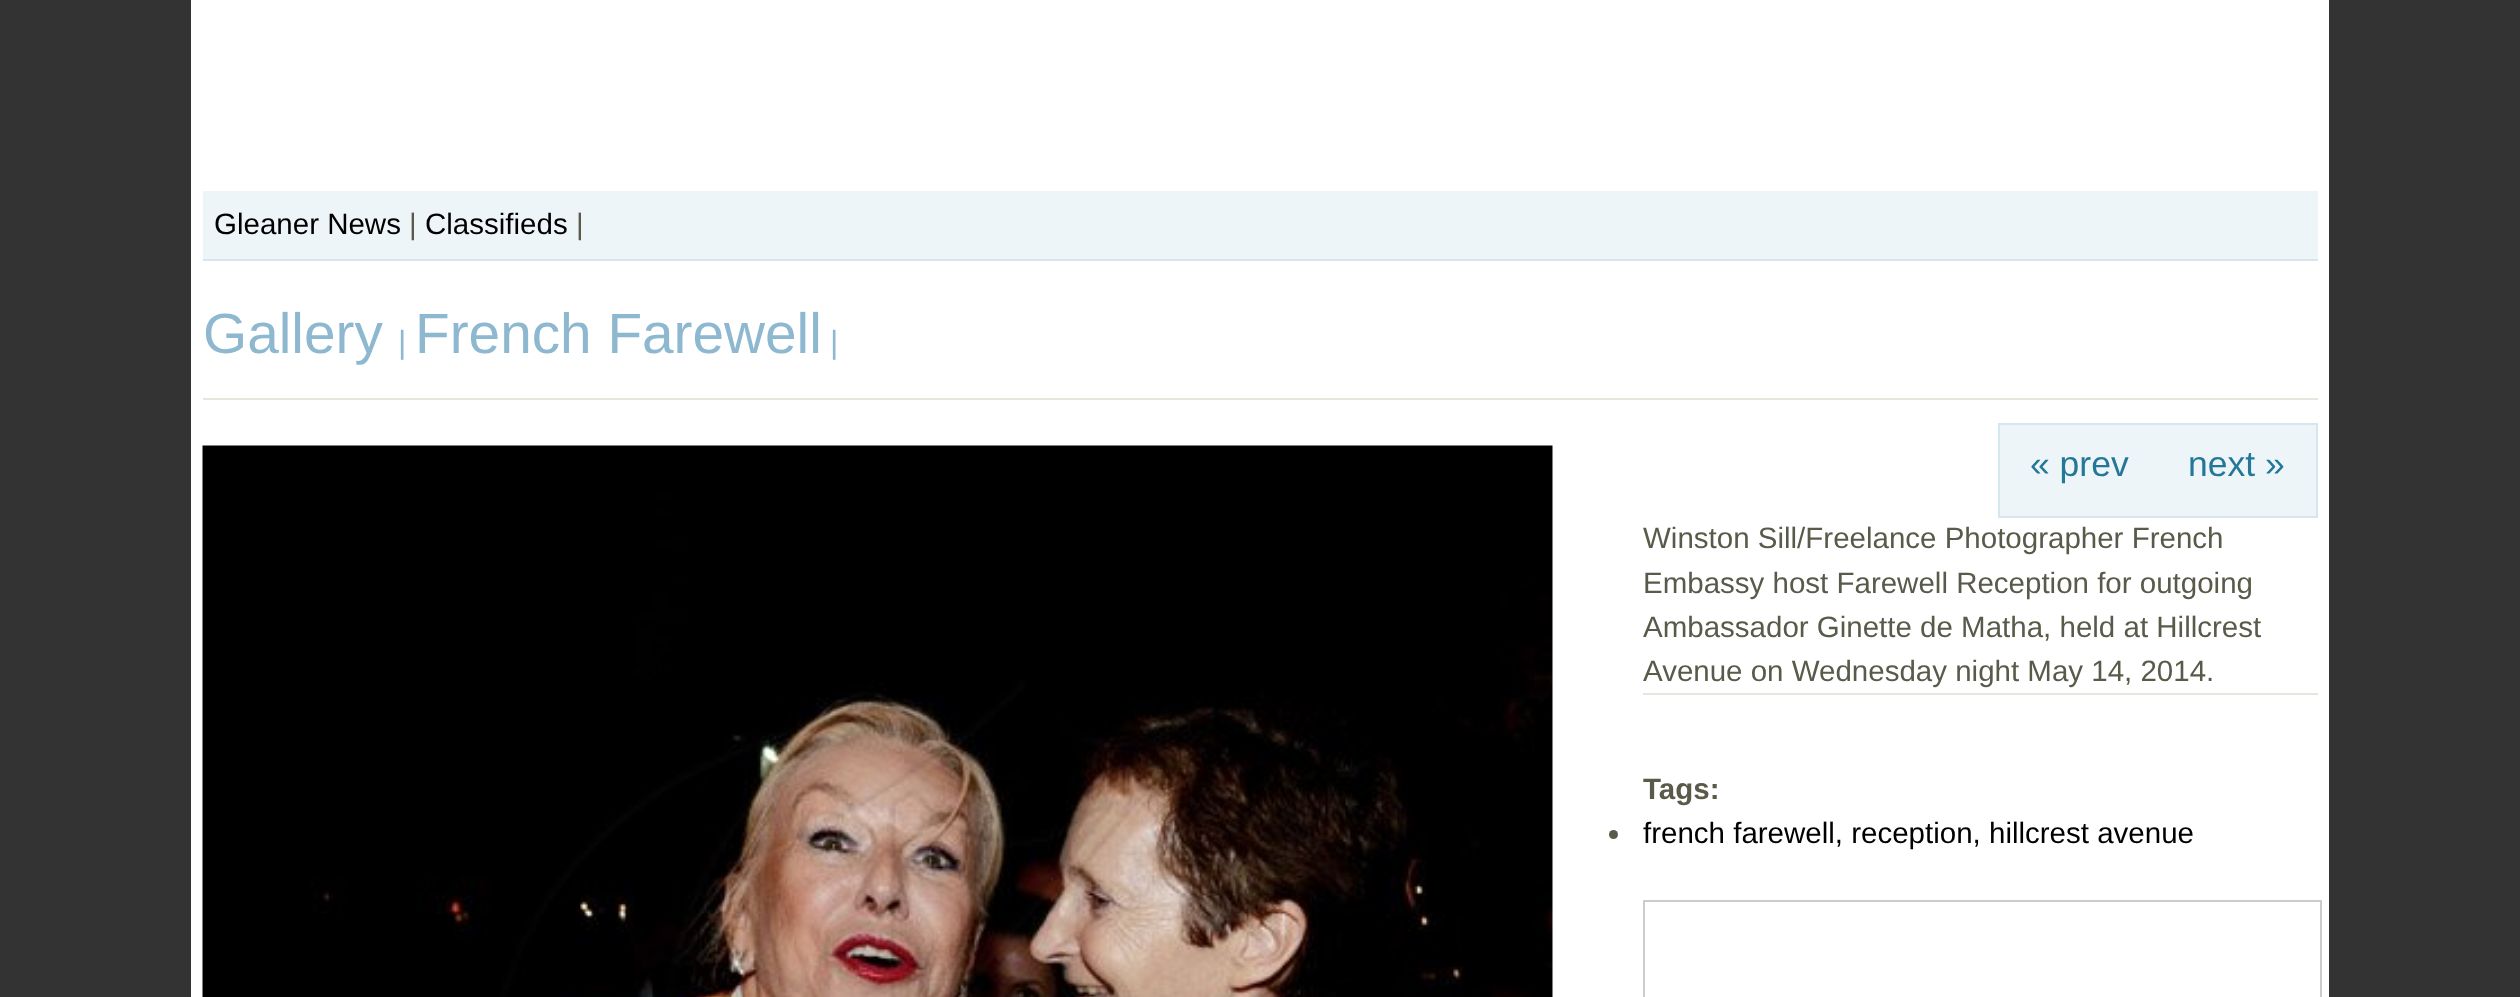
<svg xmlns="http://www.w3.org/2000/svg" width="2520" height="997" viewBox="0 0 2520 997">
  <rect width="100%" height="100%" fill="#333333"/>
  <rect x="191" y="0" width="2138" height="997" fill="#ffffff"/>
  <rect x="203" y="191" width="2115" height="68" fill="#eef5f9"/>
  <rect x="203" y="259" width="2115" height="2" fill="#d5e6ee"/>
  <text x="214" y="234" font-family="Liberation Sans" font-size="29.5" fill="#000000">Gleaner News</text>
  <text x="409" y="234" font-family="Liberation Sans" font-size="29.5" fill="#5a5a4b">|</text>
  <text x="425" y="234" font-family="Liberation Sans" font-size="29.5" fill="#000000">Classifieds</text>
  <text x="576" y="234" font-family="Liberation Sans" font-size="29.5" fill="#5a5a4b">|</text>
  <rect x="203" y="398" width="2115" height="2" fill="#e6e6df"/>
  <text x="203" y="353" font-family="Liberation Sans" font-size="56.75" fill="#8db8cf">Gallery</text>
  <text x="398" y="353" font-family="Liberation Sans" font-size="32" fill="#8db8cf">|</text>
  <text x="415" y="353" font-family="Liberation Sans" font-size="56.75" fill="#8db8cf">French Farewell</text>
  <text x="830" y="353" font-family="Liberation Sans" font-size="32" fill="#8db8cf">|</text>
  <image x="202" y="445" width="1351" height="552" href="img1.png"/>
  <rect x="1999" y="424" width="318" height="93" fill="#eef5f9" stroke="#d5e6ee" stroke-width="2"/>
  <text x="2030" y="476" font-family="Liberation Sans" font-size="35.5" fill="#237898">« prev</text>
  <text x="2188" y="476" font-family="Liberation Sans" font-size="35.5" fill="#237898">next »</text>
  <text x="1643" y="548" font-family="Liberation Sans" font-size="29.5" fill="#5a5a4b">Winston Sill/Freelance Photographer French</text>
  <text x="1643" y="593" font-family="Liberation Sans" font-size="29.5" fill="#5a5a4b">Embassy host Farewell Reception for outgoing</text>
  <text x="1643" y="637" font-family="Liberation Sans" font-size="29.5" fill="#5a5a4b">Ambassador Ginette de Matha, held at Hillcrest</text>
  <text x="1643" y="681" font-family="Liberation Sans" font-size="29.5" fill="#5a5a4b">Avenue on Wednesday night May 14, 2014.</text>
  <rect x="1643" y="693" width="675" height="2" fill="#e6e6df"/>
  <text x="1643" y="799" font-family="Liberation Sans" font-size="29.5" font-weight="bold" fill="#5a5a4b">Tags:</text>
  <circle cx="1613.5" cy="834.5" r="4.5" fill="#5a5a4b"/>
  <text x="1643" y="843" font-family="Liberation Sans" font-size="29.5" fill="#000000">french farewell, reception, hillcrest avenue</text>
  <rect x="1644" y="901" width="677" height="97" fill="none" stroke="#cccccc" stroke-width="2"/>
</svg>
